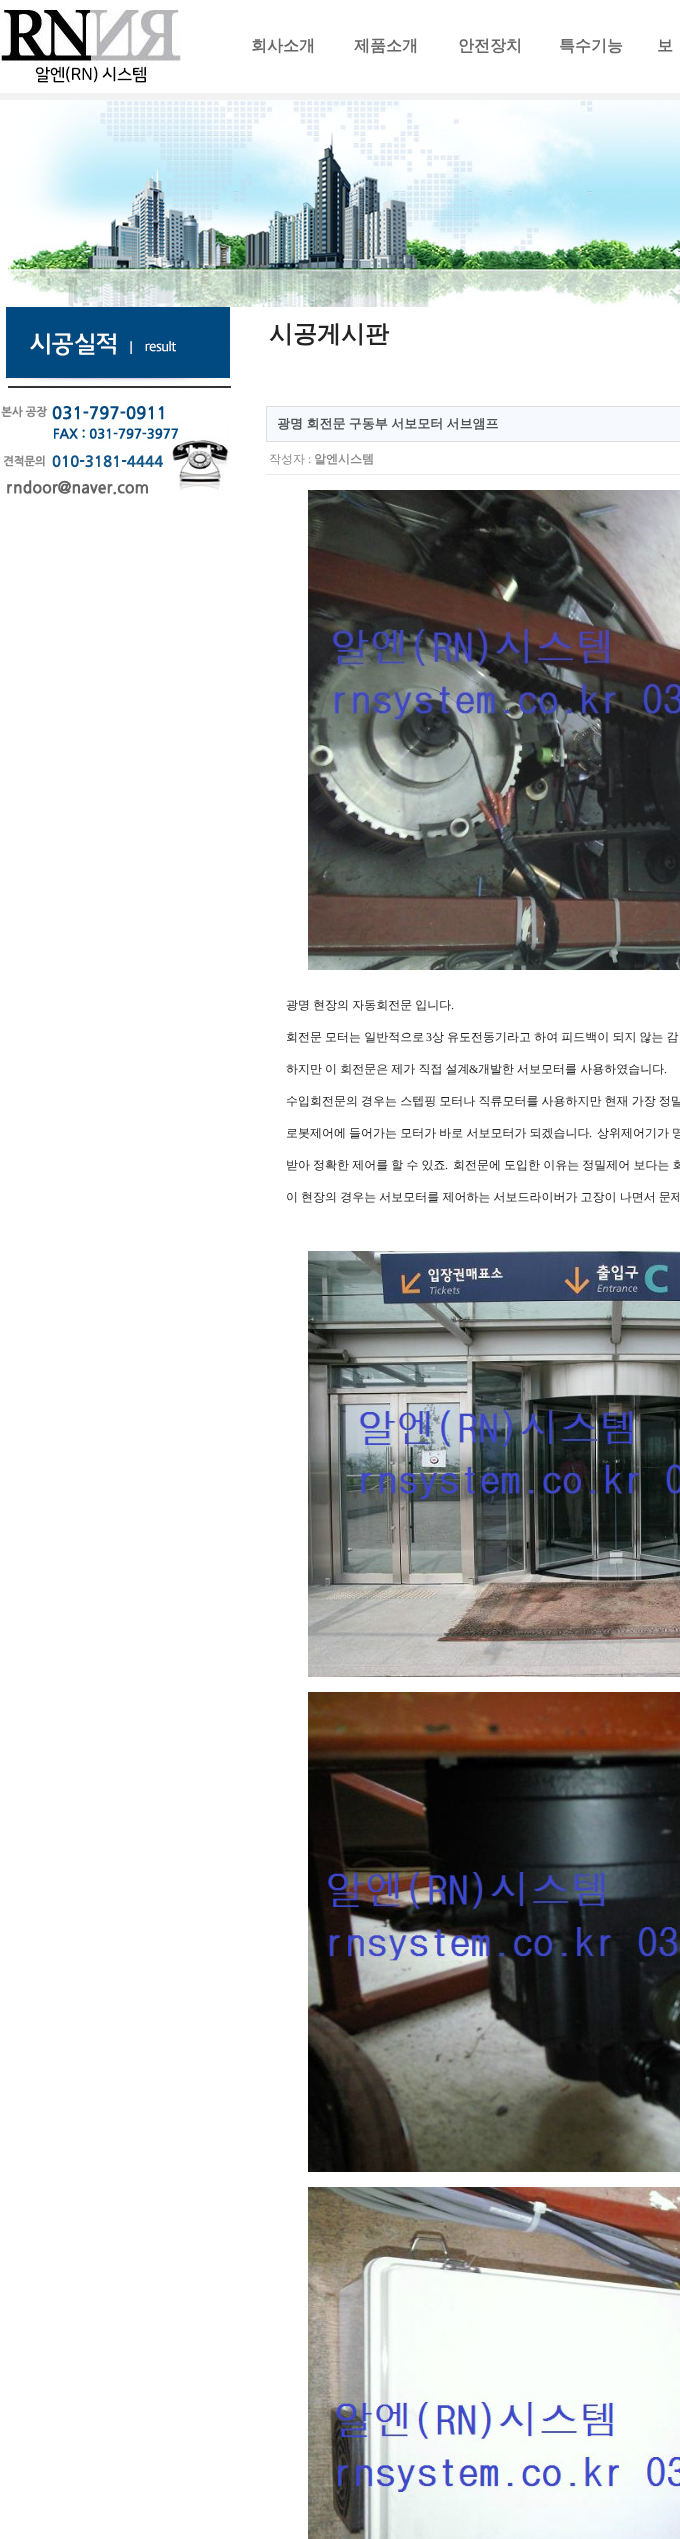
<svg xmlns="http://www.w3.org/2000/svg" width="680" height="2539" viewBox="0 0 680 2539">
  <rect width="100%" height="100%" fill="#ffffff"/>
  <rect x="0" y="93" width="680" height="7" fill="#f2f2f2"/>
  <image x="0" y="8" width="181" height="80" href="img1.png"/>
  <text x="251" y="51" font-family="WenQuanYi Zen Hei" font-size="16" font-weight="bold" fill="#676767">회사소개</text>
  <text x="354" y="51" font-family="WenQuanYi Zen Hei" font-size="16" font-weight="bold" fill="#676767">제품소개</text>
  <text x="458" y="51" font-family="WenQuanYi Zen Hei" font-size="16" font-weight="bold" fill="#676767">안전장치</text>
  <text x="559" y="51" font-family="WenQuanYi Zen Hei" font-size="16" font-weight="bold" fill="#676767">특수기능</text>
  <text x="657" y="51" font-family="WenQuanYi Zen Hei" font-size="16" font-weight="bold" fill="#676767">보</text>
  <image x="8" y="100" width="672" height="207" href="img2.png"/>
  <image x="88" y="132" width="329" height="136" href="img3.png"/>
  <image x="0" y="307" width="232" height="81" href="img4.png"/>
  <image x="1" y="403" width="229" height="92" href="img5.png"/>
  <text x="269" y="342" font-family="WenQuanYi Zen Hei" font-size="24" font-weight="bold" fill="#222222">시공게시판</text>
  <rect x="266.5" y="406.5" width="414" height="35" fill="#f6fafe" stroke="#dddddd"/>
  <text x="277" y="428" word-spacing="-0.5" font-family="WenQuanYi Zen Hei" font-size="13" font-weight="bold" fill="#505050">광명 회전문 구동부 서보모터 서브앰프</text>
  <rect x="266" y="474" width="414" height="1" fill="#eaeaea"/>
  <text x="269" y="463" font-family="WenQuanYi Zen Hei" font-size="12" font-weight="500" fill="#888888">작성자</text>
  <text x="308" y="463" font-family="Liberation Serif" font-size="12" fill="#888888">:</text>
  <text x="314" y="463" font-family="WenQuanYi Zen Hei" font-size="12" font-weight="bold" fill="#888888">알엔시스템</text>
  <image x="308" y="490" width="372" height="480" href="img6.png"/>
  <text x="286" y="1009" word-spacing="-0.5" font-family="WenQuanYi Zen Hei" font-size="12" font-weight="500" fill="#222222">광명 현장의 자동회전문 입니다</text>
  <text x="451" y="1009" font-family="Liberation Serif" font-size="12" fill="#222222">.</text>
  <text x="286" y="1041" word-spacing="-0.5" font-family="WenQuanYi Zen Hei" font-size="12" font-weight="500" fill="#222222">회전문 모터는 일반적으로</text>
  <text x="426" y="1041" font-family="Liberation Serif" font-size="12" fill="#222222">3</text>
  <text x="432" y="1041" word-spacing="-0.5" font-family="WenQuanYi Zen Hei" font-size="12" font-weight="500" fill="#222222">상 유도전동기라고 하여 피드백이 되지 않는 감</text>
  <text x="286" y="1073" word-spacing="-0.5" font-family="WenQuanYi Zen Hei" font-size="12" font-weight="500" fill="#222222">하지만 이 회전문은 제가 직접 설계</text>
  <text x="469" y="1073" font-family="Liberation Serif" font-size="12" fill="#222222">&amp;</text>
  <text x="478" y="1073" word-spacing="-0.5" font-family="WenQuanYi Zen Hei" font-size="12" font-weight="500" fill="#222222">개발한 서보모터를 사용하였습니다</text>
  <text x="664" y="1073" font-family="Liberation Serif" font-size="12" fill="#222222">.</text>
  <text x="286" y="1105" word-spacing="-0.5" font-family="WenQuanYi Zen Hei" font-size="12" font-weight="500" fill="#222222">수입회전문의 경우는 스텝핑 모터나 직류모터를 사용하지만 현재 가장 정밀</text>
  <text x="286" y="1137" word-spacing="-0.5" font-family="WenQuanYi Zen Hei" font-size="12" font-weight="500" fill="#222222">로봇제어에 들어가는 모터가 바로 서보모터가 되겠습니다</text>
  <text x="589" y="1137" font-family="Liberation Serif" font-size="12" fill="#222222">.</text>
  <text x="597" y="1137" word-spacing="-0.5" font-family="WenQuanYi Zen Hei" font-size="12" font-weight="500" fill="#222222">상위제어기가 명</text>
  <text x="286" y="1169" word-spacing="-0.5" font-family="WenQuanYi Zen Hei" font-size="12" font-weight="500" fill="#222222">받아 정확한 제어를 할 수 있죠</text>
  <text x="445" y="1169" font-family="Liberation Serif" font-size="12" fill="#222222">.</text>
  <text x="453" y="1169" word-spacing="-0.5" font-family="WenQuanYi Zen Hei" font-size="12" font-weight="500" fill="#222222">회전문에 도입한 이유는 정밀제어 보다는 회</text>
  <text x="286" y="1201" word-spacing="-0.5" font-family="WenQuanYi Zen Hei" font-size="12" font-weight="500" fill="#222222">이 현장의 경우는 서보모터를 제어하는 서보드라이버가 고장이 나면서 문제</text>
  <image x="308" y="1251" width="372" height="426" href="img7.png"/>
  <image x="308" y="1692" width="372" height="480" href="img8.png"/>
  <image x="308" y="2187" width="372" height="352" href="img9.png"/>
</svg>
